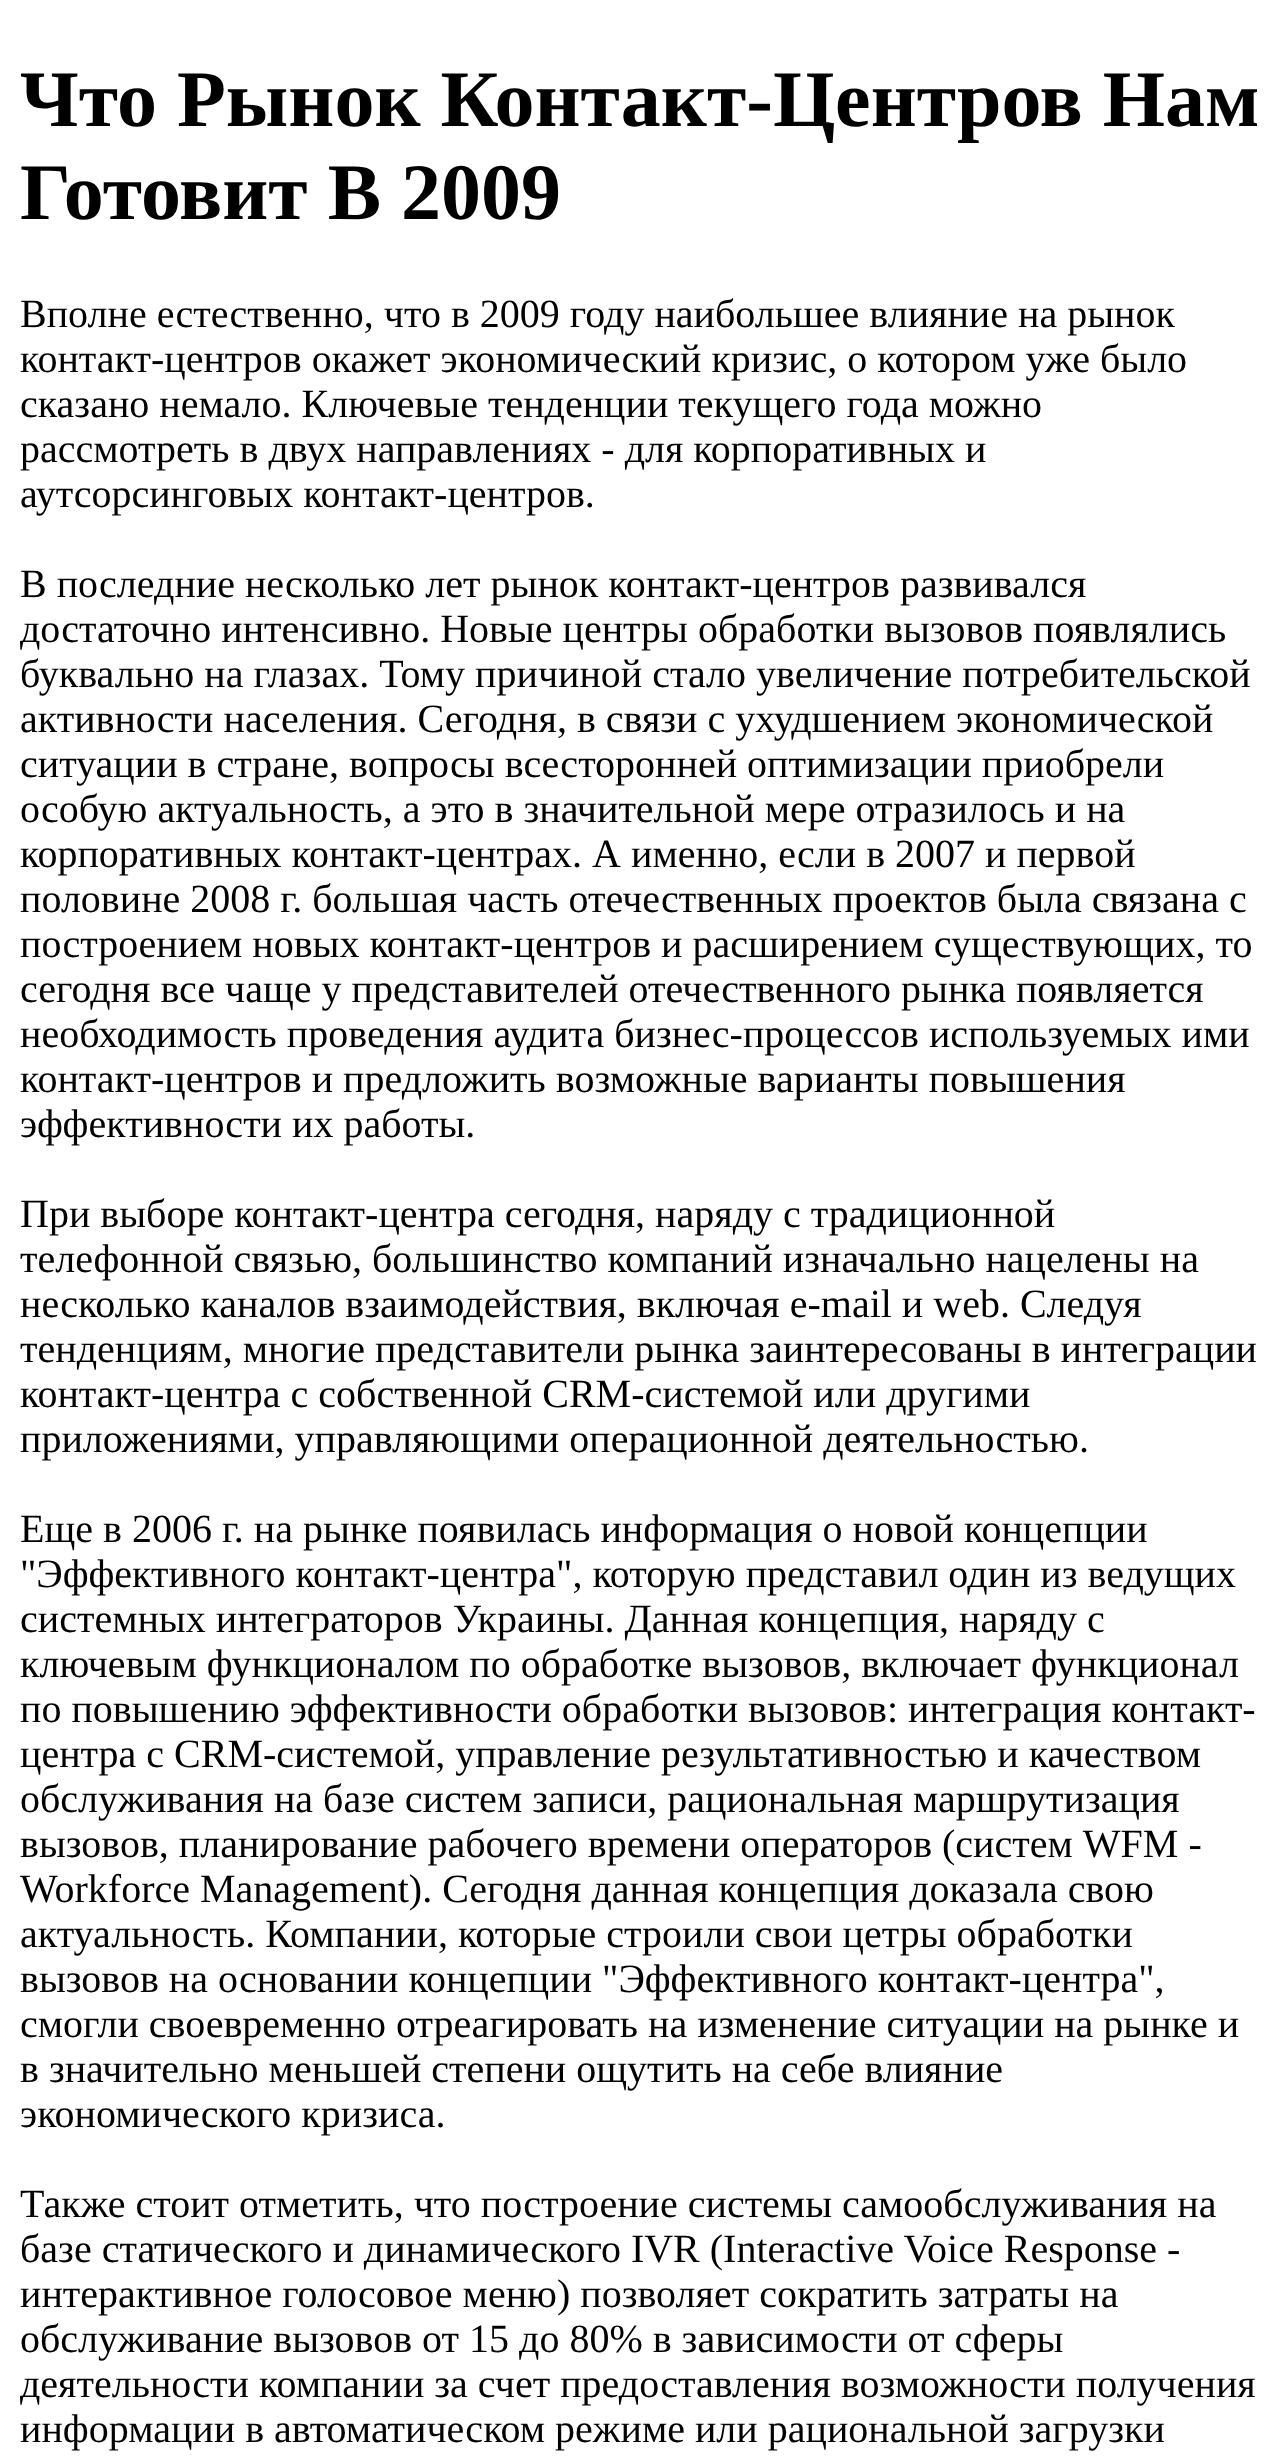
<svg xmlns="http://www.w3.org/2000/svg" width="1279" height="2461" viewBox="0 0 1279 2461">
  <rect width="100%" height="100%" fill="#ffffff"/>
  <text x="20" y="126" font-family="Liberation Serif" font-size="80" font-weight="bold" fill="#000000">Что Рынок Контакт-Центров Нам</text>
  <text x="20" y="219" font-family="Liberation Serif" font-size="80" font-weight="bold" fill="#000000">Готовит В 2009</text>
  <text x="20" y="327" font-family="Liberation Serif" font-size="40" fill="#000000">Вполне естественно, что в 2009 году наибольшее влияние на рынок</text>
  <text x="20" y="372" font-family="Liberation Serif" font-size="40" fill="#000000">контакт-центров окажет экономический кризис, о котором уже было</text>
  <text x="20" y="417" font-family="Liberation Serif" font-size="40" fill="#000000">сказано немало. Ключевые тенденции текущего года можно</text>
  <text x="20" y="462" font-family="Liberation Serif" font-size="40" fill="#000000">рассмотреть в двух направлениях - для корпоративных и</text>
  <text x="20" y="507" font-family="Liberation Serif" font-size="40" fill="#000000">аутсорсинговых контакт-центров.</text>
  <text x="20" y="597" font-family="Liberation Serif" font-size="40" fill="#000000">В последние несколько лет рынок контакт-центров развивался</text>
  <text x="20" y="642" font-family="Liberation Serif" font-size="40" fill="#000000">достаточно интенсивно. Новые центры обработки вызовов появлялись</text>
  <text x="20" y="687" font-family="Liberation Serif" font-size="40" fill="#000000">буквально на глазах. Тому причиной стало увеличение потребительской</text>
  <text x="20" y="732" font-family="Liberation Serif" font-size="40" fill="#000000">активности населения. Сегодня, в связи с ухудшением экономической</text>
  <text x="20" y="777" font-family="Liberation Serif" font-size="40" fill="#000000">ситуации в стране, вопросы всесторонней оптимизации приобрели</text>
  <text x="20" y="822" font-family="Liberation Serif" font-size="40" fill="#000000">особую актуальность, а это в значительной мере отразилось и на</text>
  <text x="20" y="867" font-family="Liberation Serif" font-size="40" fill="#000000">корпоративных контакт-центрах. А именно, если в 2007 и первой</text>
  <text x="20" y="912" font-family="Liberation Serif" font-size="40" fill="#000000">половине 2008 г. большая часть отечественных проектов была связана с</text>
  <text x="20" y="957" font-family="Liberation Serif" font-size="40" fill="#000000">построением новых контакт-центров и расширением существующих, то</text>
  <text x="20" y="1002" font-family="Liberation Serif" font-size="40" fill="#000000">сегодня все чаще у представителей отечественного рынка появляется</text>
  <text x="20" y="1047" font-family="Liberation Serif" font-size="40" fill="#000000">необходимость проведения аудита бизнес-процессов используемых ими</text>
  <text x="20" y="1092" font-family="Liberation Serif" font-size="40" fill="#000000">контакт-центров и предложить возможные варианты повышения</text>
  <text x="20" y="1137" font-family="Liberation Serif" font-size="40" fill="#000000">эффективности их работы.</text>
  <text x="20" y="1227" font-family="Liberation Serif" font-size="40" fill="#000000">При выборе контакт-центра сегодня, наряду с традиционной</text>
  <text x="20" y="1272" font-family="Liberation Serif" font-size="40" fill="#000000">телефонной связью, большинство компаний изначально нацелены на</text>
  <text x="20" y="1317" font-family="Liberation Serif" font-size="40" fill="#000000">несколько каналов взаимодействия, включая e-mail и web. Следуя</text>
  <text x="20" y="1362" font-family="Liberation Serif" font-size="40" fill="#000000">тенденциям, многие представители рынка заинтересованы в интеграции</text>
  <text x="20" y="1407" font-family="Liberation Serif" font-size="40" fill="#000000">контакт-центра с собственной CRM-системой или другими</text>
  <text x="20" y="1452" font-family="Liberation Serif" font-size="40" fill="#000000">приложениями, управляющими операционной деятельностью.</text>
  <text x="20" y="1542" font-family="Liberation Serif" font-size="40" fill="#000000">Еще в 2006 г. на рынке появилась информация о новой концепции</text>
  <text x="20" y="1587" font-family="Liberation Serif" font-size="40" fill="#000000">"Эффективного контакт-центра", которую представил один из ведущих</text>
  <text x="20" y="1632" font-family="Liberation Serif" font-size="40" fill="#000000">системных интеграторов Украины. Данная концепция, наряду с</text>
  <text x="20" y="1677" font-family="Liberation Serif" font-size="40" fill="#000000">ключевым функционалом по обработке вызовов, включает функционал</text>
  <text x="20" y="1722" font-family="Liberation Serif" font-size="40" fill="#000000">по повышению эффективности обработки вызовов: интеграция контакт-</text>
  <text x="20" y="1767" font-family="Liberation Serif" font-size="40" fill="#000000">центра с CRM-системой, управление результативностью и качеством</text>
  <text x="20" y="1812" font-family="Liberation Serif" font-size="40" fill="#000000">обслуживания на базе систем записи, рациональная маршрутизация</text>
  <text x="20" y="1857" font-family="Liberation Serif" font-size="40" fill="#000000">вызовов, планирование рабочего времени операторов (систем WFM -</text>
  <text x="20" y="1902" font-family="Liberation Serif" font-size="40" fill="#000000">Workforce Management). Сегодня данная концепция доказала свою</text>
  <text x="20" y="1947" font-family="Liberation Serif" font-size="40" fill="#000000">актуальность. Компании, которые строили свои цетры обработки</text>
  <text x="20" y="1992" font-family="Liberation Serif" font-size="40" fill="#000000">вызовов на основании концепции "Эффективного контакт-центра",</text>
  <text x="20" y="2037" font-family="Liberation Serif" font-size="40" fill="#000000">смогли своевременно отреагировать на изменение ситуации на рынке и</text>
  <text x="20" y="2082" font-family="Liberation Serif" font-size="40" fill="#000000">в значительно меньшей степени ощутить на себе влияние</text>
  <text x="20" y="2127" font-family="Liberation Serif" font-size="40" fill="#000000">экономического кризиса.</text>
  <text x="20" y="2217" font-family="Liberation Serif" font-size="40" fill="#000000">Также стоит отметить, что построение системы самообслуживания на</text>
  <text x="20" y="2262" font-family="Liberation Serif" font-size="40" fill="#000000">базе статического и динамического IVR (Interactive Voice Response -</text>
  <text x="20" y="2307" font-family="Liberation Serif" font-size="40" fill="#000000">интерактивное голосовое меню) позволяет сократить затраты на</text>
  <text x="20" y="2352" font-family="Liberation Serif" font-size="40" fill="#000000">обслуживание вызовов от 15 до 80% в зависимости от сферы</text>
  <text x="20" y="2397" font-family="Liberation Serif" font-size="40" fill="#000000">деятельности компании за счет предоставления возможности получения</text>
  <text x="20" y="2442" font-family="Liberation Serif" font-size="40" fill="#000000">информации в автоматическом режиме или рациональной загрузки</text>
</svg>
